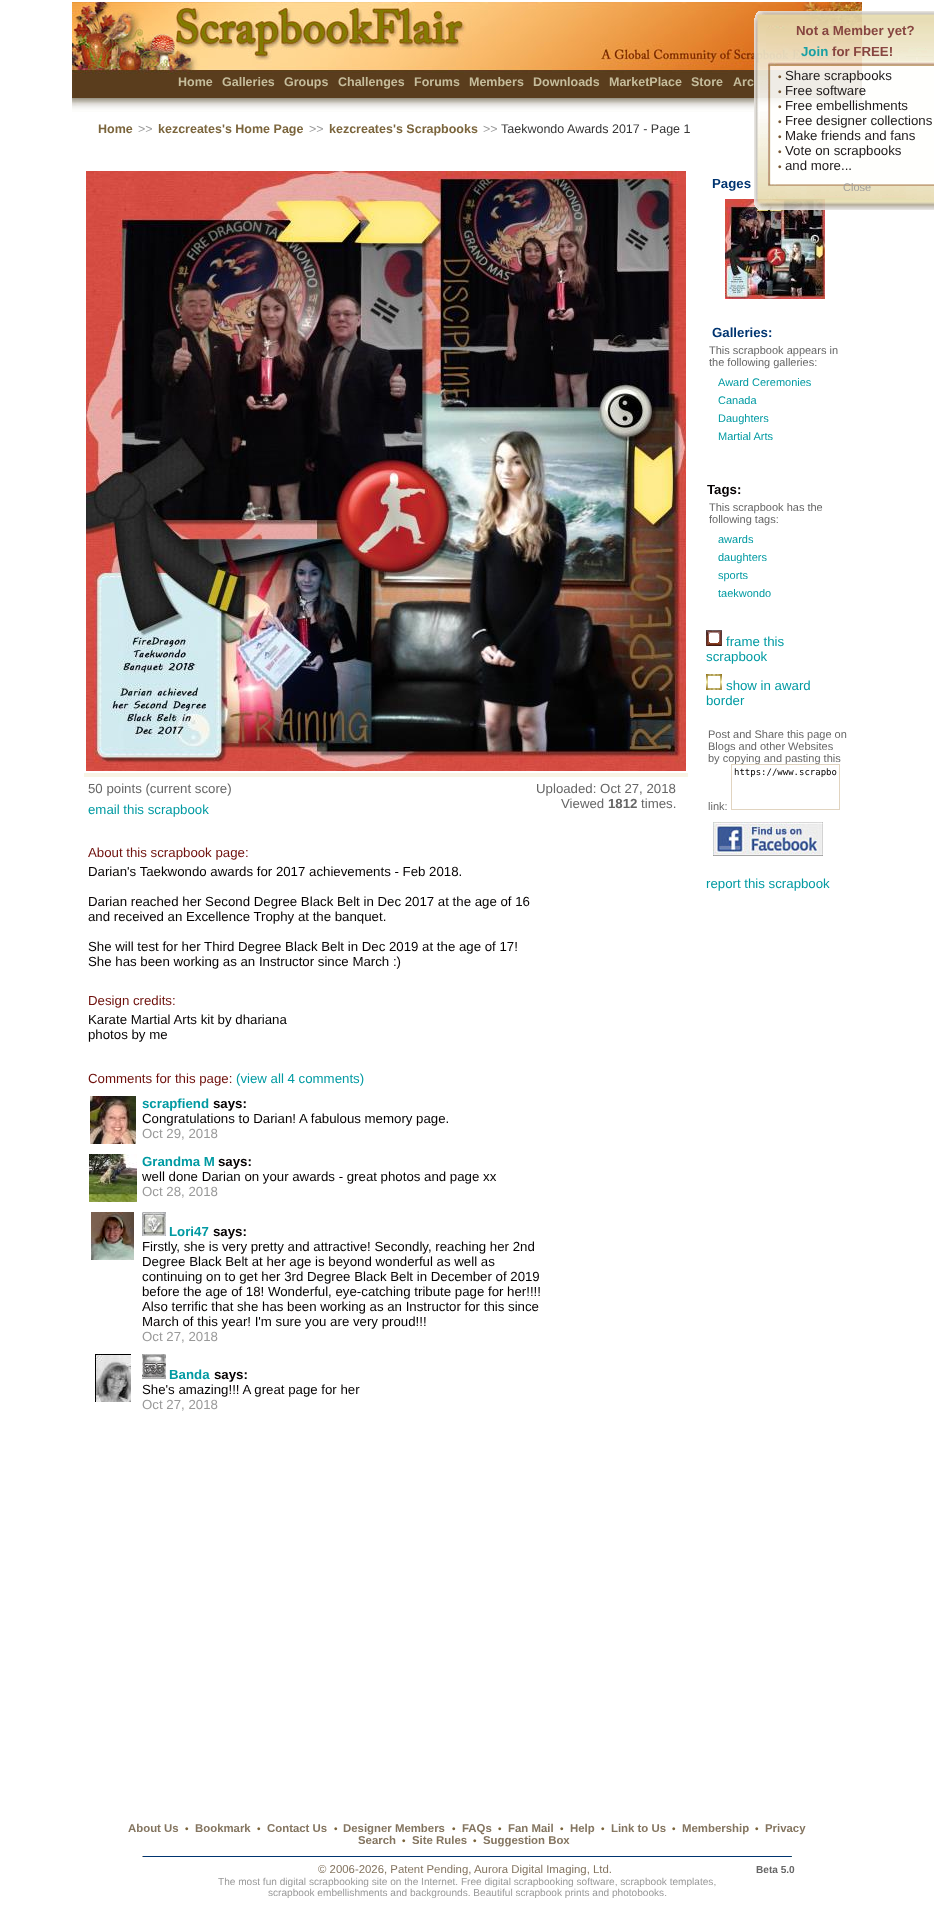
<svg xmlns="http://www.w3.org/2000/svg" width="934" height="1927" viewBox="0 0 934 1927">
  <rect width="100%" height="100%" fill="#ffffff"/>
  <image x="72" y="2" width="790" height="110" href="img1.png"/>
  <text x="178" y="86" font-family="Liberation Sans" font-size="12.5" font-weight="bold" fill="#c6bd9c">Home</text>
  <text x="222" y="86" font-family="Liberation Sans" font-size="12.5" font-weight="bold" fill="#c6bd9c">Galleries</text>
  <text x="284" y="86" font-family="Liberation Sans" font-size="12.5" font-weight="bold" fill="#c6bd9c">Groups</text>
  <text x="338" y="86" font-family="Liberation Sans" font-size="12.5" font-weight="bold" fill="#c6bd9c">Challenges</text>
  <text x="414" y="86" font-family="Liberation Sans" font-size="12.5" font-weight="bold" fill="#c6bd9c">Forums</text>
  <text x="469" y="86" font-family="Liberation Sans" font-size="12.5" font-weight="bold" fill="#c6bd9c">Members</text>
  <text x="533" y="86" font-family="Liberation Sans" font-size="12.5" font-weight="bold" fill="#c6bd9c">Downloads</text>
  <text x="609" y="86" font-family="Liberation Sans" font-size="12.5" font-weight="bold" fill="#c6bd9c">MarketPlace</text>
  <text x="691" y="86" font-family="Liberation Sans" font-size="12.5" font-weight="bold" fill="#c6bd9c">Store</text>
  <text x="733" y="86" font-family="Liberation Sans" font-size="12.5" font-weight="bold" fill="#c6bd9c">Arc</text>
  <text x="98" y="133" font-family="Liberation Sans" font-size="12.5" font-weight="bold" fill="#7b653c">Home</text>
  <text x="138" y="133" font-family="Liberation Sans" font-size="12.5" fill="#999999">&gt;&gt;</text>
  <text x="158" y="133" font-family="Liberation Sans" font-size="12.5" font-weight="bold" fill="#7b653c">kezcreates's Home Page</text>
  <text x="309" y="133" font-family="Liberation Sans" font-size="12.5" fill="#999999">&gt;&gt;</text>
  <text x="329" y="133" font-family="Liberation Sans" font-size="12.5" font-weight="bold" fill="#7b653c">kezcreates's Scrapbooks</text>
  <text x="483" y="133" font-family="Liberation Sans" font-size="12.5" fill="#999999">&gt;&gt;</text>
  <text x="501" y="133" font-family="Liberation Sans" font-size="12.5" fill="#363636">Taekwondo Awards 2017 - Page 1</text>
  <text x="712" y="188" font-family="Liberation Sans" font-size="13.25" font-weight="bold" fill="#003470">Pages</text>
  <image x="725" y="199" width="100" height="100" href="img2.png"/>
  <text x="712" y="337" font-family="Liberation Sans" font-size="13.25" font-weight="bold" fill="#003470">Galleries:</text>
  <text x="709" y="354" font-family="Liberation Sans" font-size="11" fill="#666666">This scrapbook appears in</text>
  <text x="709" y="366" font-family="Liberation Sans" font-size="11" fill="#666666">the following galleries:</text>
  <text x="718" y="386" font-family="Liberation Sans" font-size="11" fill="#019aa2">Award Ceremonies</text>
  <text x="718" y="404" font-family="Liberation Sans" font-size="11" fill="#019aa2">Canada</text>
  <text x="718" y="422" font-family="Liberation Sans" font-size="11" fill="#019aa2">Daughters</text>
  <text x="718" y="440" font-family="Liberation Sans" font-size="11" fill="#019aa2">Martial Arts</text>
  <text x="707" y="494" font-family="Liberation Sans" font-size="13.25" font-weight="bold" fill="#040001">Tags:</text>
  <text x="709" y="511" font-family="Liberation Sans" font-size="11" fill="#666666">This scrapbook has the</text>
  <text x="709" y="523" font-family="Liberation Sans" font-size="11" fill="#666666">following tags:</text>
  <text x="718" y="543" font-family="Liberation Sans" font-size="11" fill="#019aa2">awards</text>
  <text x="718" y="561" font-family="Liberation Sans" font-size="11" fill="#019aa2">daughters</text>
  <text x="718" y="579" font-family="Liberation Sans" font-size="11" fill="#019aa2">sports</text>
  <text x="718" y="597" font-family="Liberation Sans" font-size="11" fill="#019aa2">taekwondo</text>
  <image x="706" y="630" width="16" height="16" href="img3.png"/>
  <text x="726" y="646" font-family="Liberation Sans" font-size="13.25" fill="#019aa2">frame this</text>
  <text x="706" y="661" font-family="Liberation Sans" font-size="13.25" fill="#019aa2">scrapbook</text>
  <image x="706" y="674" width="16" height="16" href="img4.png"/>
  <text x="726" y="690" font-family="Liberation Sans" font-size="13.25" fill="#019aa2">show in award</text>
  <text x="706" y="705" font-family="Liberation Sans" font-size="13.25" fill="#019aa2">border</text>
  <text x="708" y="738" font-family="Liberation Sans" font-size="11" fill="#666666">Post and Share this page on</text>
  <text x="708" y="750" font-family="Liberation Sans" font-size="11" fill="#666666">Blogs and other Websites</text>
  <text x="708" y="762" font-family="Liberation Sans" font-size="11" fill="#666666">by copying and pasting this</text>
  <rect x="731.5" y="764.5" width="108" height="45" fill="none" stroke="#e1d4c0"/>
  <text x="734" y="775" font-family="DejaVu Sans Mono" font-size="9" fill="#040001">https://www.scrapbo</text>
  <text x="708" y="810" font-family="Liberation Sans" font-size="11" fill="#666666">link:</text>
  <image x="713" y="822" width="110" height="34" href="img5.png"/>
  <text x="706" y="888" font-family="Liberation Sans" font-size="13.25" fill="#019aa2">report this scrapbook</text>
  <image x="86" y="171" width="600" height="600" href="img6.png"/>
  <rect x="84" y="773" width="604" height="4" fill="#f7f4e5"/>
  <text x="88" y="793" font-family="Liberation Sans" font-size="13.25" fill="#666666">50 points (current score)</text>
  <text x="88" y="814" font-family="Liberation Sans" font-size="13.25" fill="#019aa2">email this scrapbook</text>
  <text x="536" y="793" font-family="Liberation Sans" font-size="13.25" fill="#666666">Uploaded: Oct 27, 2018</text>
  <text x="561" y="808" font-family="Liberation Sans" font-size="13.25" fill="#666666">Viewed</text>
  <text x="608" y="808" font-family="Liberation Sans" font-size="13.25" font-weight="bold" fill="#666666">1812</text>
  <text x="641" y="808" font-family="Liberation Sans" font-size="13.25" fill="#666666">times.</text>
  <text x="88" y="857" font-family="Liberation Sans" font-size="13.25" fill="#6e0f0b">About this scrapbook page:</text>
  <text x="88" y="876" font-family="Liberation Sans" font-size="13.25" fill="#040001">Darian's Taekwondo awards for 2017 achievements - Feb 2018.</text>
  <text x="88" y="906" font-family="Liberation Sans" font-size="13.25" fill="#040001">Darian reached her Second Degree Black Belt in Dec 2017 at the age of 16</text>
  <text x="88" y="921" font-family="Liberation Sans" font-size="13.25" fill="#040001">and received an Excellence Trophy at the banquet.</text>
  <text x="88" y="951" font-family="Liberation Sans" font-size="13.25" fill="#040001">She will test for her Third Degree Black Belt in Dec 2019 at the age of 17!</text>
  <text x="88" y="966" font-family="Liberation Sans" font-size="13.25" fill="#040001">She has been working as an Instructor since March :)</text>
  <text x="88" y="1005" font-family="Liberation Sans" font-size="13.25" fill="#6e0f0b">Design credits:</text>
  <text x="88" y="1024" font-family="Liberation Sans" font-size="13.25" fill="#040001">Karate Martial Arts kit by dhariana</text>
  <text x="88" y="1039" font-family="Liberation Sans" font-size="13.25" fill="#040001">photos by me</text>
  <text x="88" y="1083" font-family="Liberation Sans" font-size="13.25" fill="#6e0f0b">Comments for this page:</text>
  <text x="236" y="1083" font-family="Liberation Sans" font-size="13.25" fill="#019aa2">(view all 4 comments)</text>
  <image x="90" y="1096" width="46" height="48" href="img7.png"/>
  <text x="142" y="1108" font-family="Liberation Sans" font-size="13.25" font-weight="bold" fill="#019aa2">scrapfiend</text>
  <text x="213" y="1108" font-family="Liberation Sans" font-size="13.25" font-weight="bold" fill="#040001">says:</text>
  <text x="142" y="1123" font-family="Liberation Sans" font-size="13.25" fill="#040001">Congratulations to Darian!</text>
  <text x="299" y="1123" font-family="Liberation Sans" font-size="13.25" fill="#040001">A fabulous memory page.</text>
  <text x="142" y="1138" font-family="Liberation Sans" font-size="13.25" fill="#999999">Oct 29, 2018</text>
  <image x="89" y="1154" width="48" height="48" href="img8.png"/>
  <text x="142" y="1166" font-family="Liberation Sans" font-size="13.25" font-weight="bold" fill="#019aa2">Grandma M</text>
  <text x="218" y="1166" font-family="Liberation Sans" font-size="13.25" font-weight="bold" fill="#040001">says:</text>
  <text x="142" y="1181" font-family="Liberation Sans" font-size="13.25" fill="#040001">well done Darian on your awards - great photos and page xx</text>
  <text x="142" y="1196" font-family="Liberation Sans" font-size="13.25" fill="#999999">Oct 28, 2018</text>
  <image x="91" y="1212" width="43" height="48" href="img9.png"/>
  <image x="142" y="1212" width="24" height="24" href="img10.png"/>
  <text x="169" y="1236" font-family="Liberation Sans" font-size="13.25" font-weight="bold" fill="#019aa2">Lori47</text>
  <text x="213" y="1236" font-family="Liberation Sans" font-size="13.25" font-weight="bold" fill="#040001">says:</text>
  <text x="142" y="1251" font-family="Liberation Sans" font-size="13.25" fill="#040001">Firstly, she is very pretty and attractive! Secondly, reaching her 2nd</text>
  <text x="142" y="1266" font-family="Liberation Sans" font-size="13.25" fill="#040001">Degree Black Belt at her age is beyond wonderful as well as</text>
  <text x="142" y="1281" font-family="Liberation Sans" font-size="13.25" fill="#040001">continuing on to get her 3rd Degree Black Belt in December of 2019</text>
  <text x="142" y="1296" font-family="Liberation Sans" font-size="13.25" fill="#040001">before the age of 18! Wonderful, eye-catching tribute page for her!!!!</text>
  <text x="142" y="1311" font-family="Liberation Sans" font-size="13.25" fill="#040001">Also terrific that she has been working as an Instructor for this since</text>
  <text x="142" y="1326" font-family="Liberation Sans" font-size="13.25" fill="#040001">March of this year! I'm sure you are very proud!!!</text>
  <text x="142" y="1341" font-family="Liberation Sans" font-size="13.25" fill="#999999">Oct 27, 2018</text>
  <image x="95" y="1354" width="36" height="48" href="img11.png"/>
  <image x="142" y="1354" width="24" height="25" href="img12.png"/>
  <text x="169" y="1379" font-family="Liberation Sans" font-size="13.25" font-weight="bold" fill="#019aa2">Banda</text>
  <text x="214" y="1379" font-family="Liberation Sans" font-size="13.25" font-weight="bold" fill="#040001">says:</text>
  <text x="142" y="1394" font-family="Liberation Sans" font-size="13.25" fill="#040001">She's amazing!!! A great page for her</text>
  <text x="142" y="1409" font-family="Liberation Sans" font-size="13.25" fill="#999999">Oct 27, 2018</text>
  <text x="128" y="1832" font-family="Liberation Sans" font-size="11.4" font-weight="bold" fill="#847560">About Us</text>
  <text x="185" y="1832" font-family="Liberation Sans" font-size="10" font-weight="bold" fill="#7b653c">•</text>
  <text x="195" y="1832" font-family="Liberation Sans" font-size="11.4" font-weight="bold" fill="#847560">Bookmark</text>
  <text x="257" y="1832" font-family="Liberation Sans" font-size="10" font-weight="bold" fill="#7b653c">•</text>
  <text x="267" y="1832" font-family="Liberation Sans" font-size="11.4" font-weight="bold" fill="#847560">Contact Us</text>
  <text x="334" y="1832" font-family="Liberation Sans" font-size="10" font-weight="bold" fill="#7b653c">•</text>
  <text x="343" y="1832" font-family="Liberation Sans" font-size="11.4" font-weight="bold" fill="#847560">Designer Members</text>
  <text x="452" y="1832" font-family="Liberation Sans" font-size="10" font-weight="bold" fill="#7b653c">•</text>
  <text x="462" y="1832" font-family="Liberation Sans" font-size="11.4" font-weight="bold" fill="#847560">FAQs</text>
  <text x="498" y="1832" font-family="Liberation Sans" font-size="10" font-weight="bold" fill="#7b653c">•</text>
  <text x="508" y="1832" font-family="Liberation Sans" font-size="11.4" font-weight="bold" fill="#847560">Fan Mail</text>
  <text x="560" y="1832" font-family="Liberation Sans" font-size="10" font-weight="bold" fill="#7b653c">•</text>
  <text x="570" y="1832" font-family="Liberation Sans" font-size="11.4" font-weight="bold" fill="#847560">Help</text>
  <text x="601" y="1832" font-family="Liberation Sans" font-size="10" font-weight="bold" fill="#7b653c">•</text>
  <text x="611" y="1832" font-family="Liberation Sans" font-size="11.4" font-weight="bold" fill="#847560">Link to Us</text>
  <text x="672" y="1832" font-family="Liberation Sans" font-size="10" font-weight="bold" fill="#7b653c">•</text>
  <text x="682" y="1832" font-family="Liberation Sans" font-size="11.4" font-weight="bold" fill="#847560">Membership</text>
  <text x="755" y="1832" font-family="Liberation Sans" font-size="10" font-weight="bold" fill="#7b653c">•</text>
  <text x="765" y="1832" font-family="Liberation Sans" font-size="11.4" font-weight="bold" fill="#847560">Privacy</text>
  <text x="358" y="1844" font-family="Liberation Sans" font-size="11.4" font-weight="bold" fill="#847560">Search</text>
  <text x="402" y="1844" font-family="Liberation Sans" font-size="10" font-weight="bold" fill="#7b653c">•</text>
  <text x="412" y="1844" font-family="Liberation Sans" font-size="11.4" font-weight="bold" fill="#847560">Site Rules</text>
  <text x="473" y="1844" font-family="Liberation Sans" font-size="10" font-weight="bold" fill="#7b653c">•</text>
  <text x="483" y="1844" font-family="Liberation Sans" font-size="11.4" font-weight="bold" fill="#847560">Suggestion Box</text>
  <image x="142" y="1856" width="650" height="1" href="img13.png"/>
  <text x="318" y="1873" font-family="Liberation Sans" font-size="11.4" fill="#847560">© 2006-2026, Patent Pending,</text>
  <text x="474" y="1873" font-family="Liberation Sans" font-size="11.4" fill="#847560">Aurora Digital Imaging, Ltd.</text>
  <text x="756" y="1873" font-family="Liberation Sans" font-size="10.1" font-weight="bold" fill="#666666">Beta 5.0</text>
  <text x="218" y="1885" font-family="Liberation Sans" font-size="10.1" fill="#999999">The most fun digital scrapbooking site on the Internet. Free digital scrapbooking software, scrapbook templates,</text>
  <text x="268" y="1896" font-family="Liberation Sans" font-size="10.1" fill="#999999">scrapbook embellishments and backgrounds. Beautiful scrapbook prints and photobooks.</text>
  <image x="754" y="11" width="180" height="199" href="img14.png"/>
  <text x="796" y="35" font-family="Liberation Sans" font-size="13.25" font-weight="bold" fill="#874540">Not a Member yet?</text>
  <text x="801" y="56" font-family="Liberation Sans" font-size="13.25" font-weight="bold" fill="#18a0a4">Join</text>
  <text x="832" y="56" font-family="Liberation Sans" font-size="13.25" font-weight="bold" fill="#874540">for FREE!</text>
  <text x="778" y="80" font-family="Liberation Sans" font-size="10" font-weight="bold" fill="#765734">•</text>
  <text x="785" y="80" font-family="Liberation Sans" font-size="13.25" fill="#1c1819">Share scrapbooks</text>
  <text x="778" y="95" font-family="Liberation Sans" font-size="10" font-weight="bold" fill="#765734">•</text>
  <text x="785" y="95" font-family="Liberation Sans" font-size="13.25" fill="#1c1819">Free software</text>
  <text x="778" y="110" font-family="Liberation Sans" font-size="10" font-weight="bold" fill="#765734">•</text>
  <text x="785" y="110" font-family="Liberation Sans" font-size="13.25" fill="#1c1819">Free embellishments</text>
  <text x="778" y="125" font-family="Liberation Sans" font-size="10" font-weight="bold" fill="#765734">•</text>
  <text x="785" y="125" font-family="Liberation Sans" font-size="13.25" fill="#1c1819">Free designer collections</text>
  <text x="778" y="140" font-family="Liberation Sans" font-size="10" font-weight="bold" fill="#765734">•</text>
  <text x="785" y="140" font-family="Liberation Sans" font-size="13.25" fill="#1c1819">Make friends and fans</text>
  <text x="778" y="155" font-family="Liberation Sans" font-size="10" font-weight="bold" fill="#765734">•</text>
  <text x="785" y="155" font-family="Liberation Sans" font-size="13.25" fill="#1c1819">Vote on scrapbooks</text>
  <text x="778" y="170" font-family="Liberation Sans" font-size="10" font-weight="bold" fill="#765734">•</text>
  <text x="785" y="170" font-family="Liberation Sans" font-size="13.25" fill="#1c1819">and more...</text>
  <text x="843" y="191" font-family="Liberation Sans" font-size="11" fill="#a19f9c">Close</text>
</svg>
